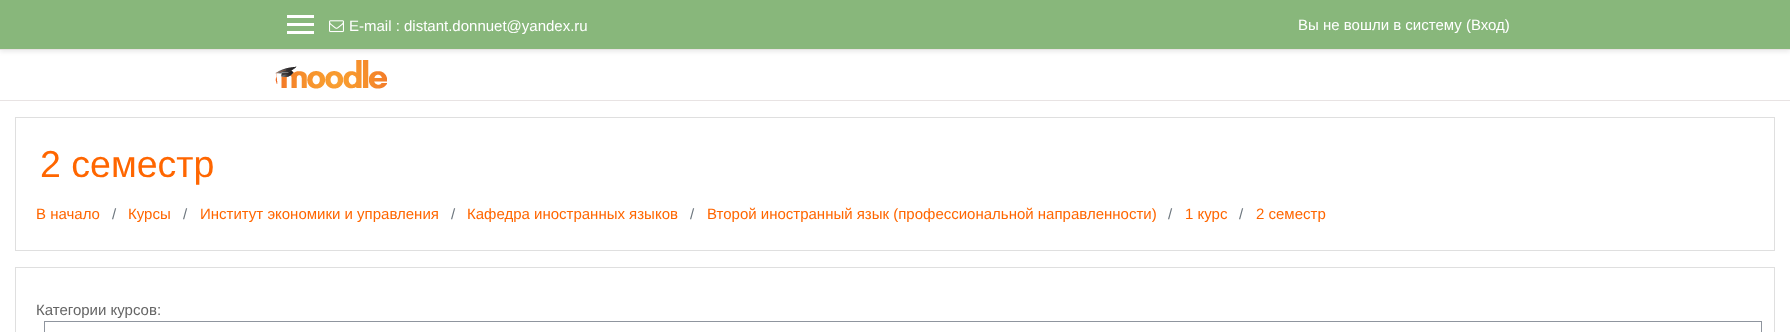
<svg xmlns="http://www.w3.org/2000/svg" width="1790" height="332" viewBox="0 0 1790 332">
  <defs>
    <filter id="blur1" x="-50%" y="-200%" width="200%" height="500%"><feGaussianBlur stdDeviation="2"/></filter>
  </defs>
  <rect width="100%" height="100%" fill="#ffffff"/>
  <rect x="0" y="2" width="1790" height="50" fill="#000000" fill-opacity="0.08" filter="url(#blur1)"/>
  <rect x="0" y="0" width="1790" height="49" fill="#88b77b"/>
  <rect x="0" y="49" width="1790" height="1" fill="#e8e3e3"/>
  <rect x="287" y="15" width="27" height="3" fill="#ffffff"/>
  <rect x="287" y="23" width="27" height="3" fill="#ffffff"/>
  <rect x="287" y="31" width="27" height="3" fill="#ffffff"/>
  <image x="329" y="20" width="15" height="13" href="img1.png"/>
  <text x="349" y="31" font-family="Liberation Sans" font-size="15" fill="#ffffff">E-mail : distant.donnuet@yandex.ru</text>
  <text x="1298" y="30" font-family="Liberation Sans" font-size="15" fill="#ffffff">Вы не вошли в систему (Вход)</text>
  <rect x="0" y="100" width="1790" height="1" fill="#e8e3e3"/>
  <image x="275" y="60" width="112" height="29" href="img2.png"/>
  <rect x="15.5" y="117.5" width="1759" height="133" fill="none" stroke="#dfdfdf"/>
  <text x="40" y="177" font-family="Liberation Sans" font-size="37.5" fill="#ff6600">2 семестр</text>
  <text x="36" y="219" font-family="Liberation Sans" font-size="15" fill="#ff6600">В начало</text>
  <text x="112" y="219" font-family="Liberation Sans" font-size="15" fill="#6c757d">/</text>
  <text x="128" y="219" font-family="Liberation Sans" font-size="15" fill="#ff6600">Курсы</text>
  <text x="183" y="219" font-family="Liberation Sans" font-size="15" fill="#6c757d">/</text>
  <text x="200" y="219" font-family="Liberation Sans" font-size="15" fill="#ff6600">Институт экономики и управления</text>
  <text x="451" y="219" font-family="Liberation Sans" font-size="15" fill="#6c757d">/</text>
  <text x="467" y="219" font-family="Liberation Sans" font-size="15" fill="#ff6600">Кафедра иностранных языков</text>
  <text x="690" y="219" font-family="Liberation Sans" font-size="15" fill="#6c757d">/</text>
  <text x="707" y="219" font-family="Liberation Sans" font-size="15" fill="#ff6600">Второй иностранный язык (профессиональной направленности)</text>
  <text x="1168" y="219" font-family="Liberation Sans" font-size="15" fill="#6c757d">/</text>
  <text x="1185" y="219" font-family="Liberation Sans" font-size="15" fill="#ff6600">1 курс</text>
  <text x="1239" y="219" font-family="Liberation Sans" font-size="15" fill="#6c757d">/</text>
  <text x="1256" y="219" font-family="Liberation Sans" font-size="15" fill="#ff6600">2 семестр</text>
  <rect x="15.5" y="267.5" width="1759" height="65" fill="none" stroke="#dfdfdf"/>
  <text x="36" y="315" font-family="Liberation Sans" font-size="15" fill="#656565">Категории курсов:</text>
  <rect x="44.5" y="321.5" width="1717" height="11" fill="none" stroke="#8f959e"/>
</svg>
